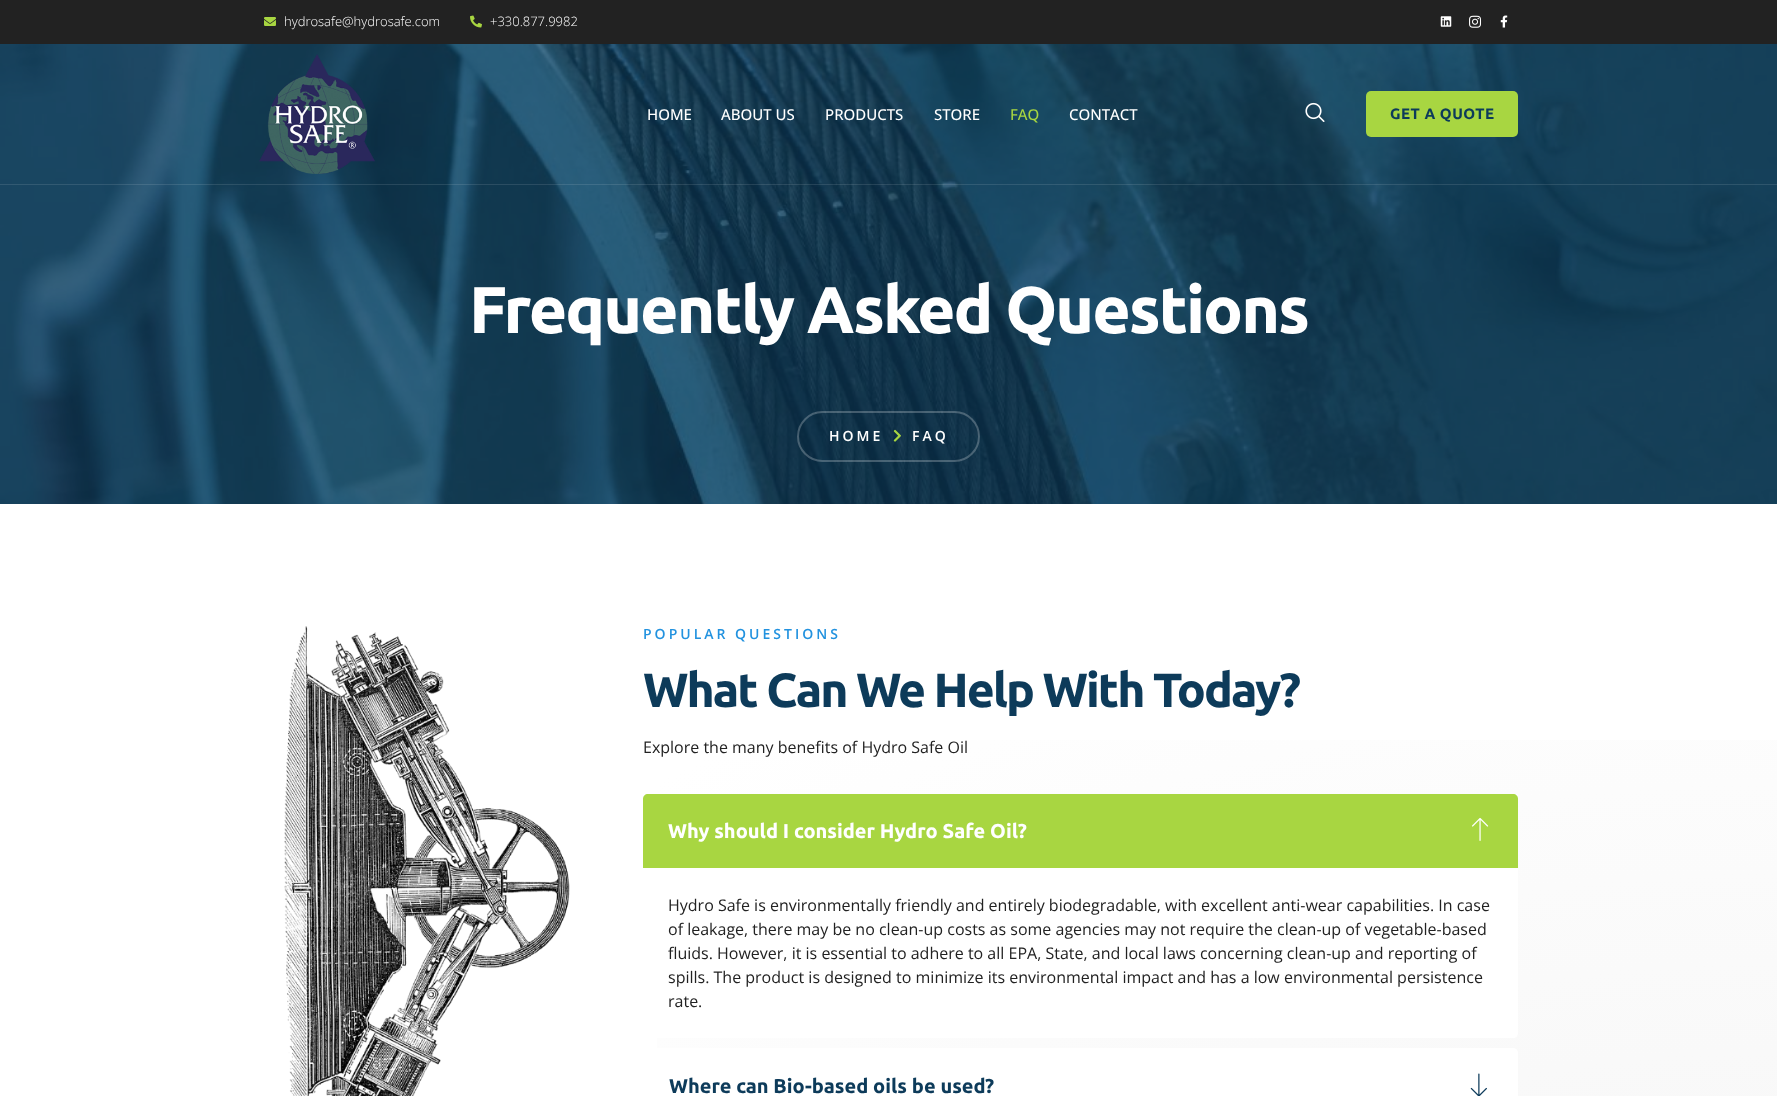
<svg xmlns="http://www.w3.org/2000/svg" width="1777" height="1096" viewBox="0 0 1777 1096">
  <defs>
    <radialGradient id="g1" gradientUnits="userSpaceOnUse" cx="0" cy="0" r="1" gradientTransform="matrix(2513 0 0 1657 1777 1676)"><stop offset="0" stop-color="#f2f2f2"/><stop offset="0.7" stop-color="#ffffff"/></radialGradient>
  </defs>
  <rect width="100%" height="100%" fill="#ffffff"/>
  <rect x="0" y="0" width="1777" height="44" fill="#222222"/>
  <image x="264" y="17" width="12" height="9" href="img1.png"/>
  <text x="284" y="26" font-family="Open Sans" font-size="13" font-weight="300" fill="#ffffff">hydrosafe@hydrosafe.com</text>
  <image x="470" y="15" width="12" height="13" href="img2.png"/>
  <text x="490" y="26" font-family="Open Sans" font-size="13" font-weight="300" fill="#ffffff">+330.877.9982</text>
  <image x="1440" y="16" width="12" height="11" href="img3.png"/>
  <image x="1469" y="15" width="13" height="13" href="img4.png"/>
  <image x="1500" y="15" width="8" height="13" href="img5.png"/>
  <image x="0" y="44" width="1777" height="460" href="img8.png"/>
  <rect x="0" y="184" width="1777" height="1" fill="#ffffff" fill-opacity="0.11"/>
  <image x="259" y="54" width="116" height="120" href="img6.png"/>
  <text x="647" y="120" font-family="Open Sans" font-size="15" font-weight="500" fill="#ffffff">HOME</text>
  <text x="721" y="120" font-family="Open Sans" font-size="15" font-weight="500" fill="#ffffff">ABOUT US</text>
  <text x="825" y="120" font-family="Open Sans" font-size="15" font-weight="500" fill="#ffffff">PRODUCTS</text>
  <text x="934" y="120" font-family="Open Sans" font-size="15" font-weight="500" fill="#ffffff">STORE</text>
  <text x="1010" y="120" font-family="Open Sans" font-size="15" font-weight="500" fill="#a8d641">FAQ</text>
  <text x="1069" y="120" font-family="Open Sans" font-size="15" font-weight="500" fill="#ffffff">CONTACT</text>
  <image x="1305" y="102" width="20" height="20" href="img7.png"/>
  <rect x="1366" y="91" width="152" height="46" rx="5" fill="#a8d641"/>
  <text x="1390" y="119" font-family="Ubuntu" font-size="15" font-weight="bold" letter-spacing="0.5" fill="#0d3b5a">GET A QUOTE</text>
  <text x="469" y="333" font-family="Ubuntu" font-size="66" font-weight="bold" letter-spacing="-2" fill="#ffffff">Frequently Asked Questions</text>
  <rect x="798" y="412" width="181" height="49" rx="24.5" fill="none" stroke="#ffffff" stroke-opacity="0.24" stroke-width="2"/>
  <text x="829" y="441" font-family="Open Sans" font-size="14" font-weight="600" letter-spacing="3" fill="#ffffff">HOME</text>
  <image x="893" y="429" width="8" height="13" href="img9.png"/>
  <text x="912" y="441" font-family="Open Sans" font-size="14" font-weight="600" letter-spacing="3" fill="#ffffff">FAQ</text>
  <rect x="657" y="740" width="1120" height="356" fill="url(#g1)"/>
  <image x="284" y="626" width="286" height="470" href="img10.png"/>
  <text x="643" y="639" font-family="Open Sans" font-size="14" font-weight="600" letter-spacing="3" fill="#2292df">POPULAR QUESTIONS</text>
  <text x="643" y="707" font-family="Ubuntu" font-size="48" font-weight="bold" letter-spacing="-2" fill="#0d3b5a">What Can We Help With Today?</text>
  <text x="643" y="753" font-family="Open Sans" font-size="16" fill="#222222">Explore the many benefits of Hydro Safe Oil</text>
  <path d="M648 794H1513C1516 794 1518 796 1518 799V868H643V799C643 796 645 794 648 794Z" fill="#a8d641"/>
  <text x="668" y="838" font-family="Ubuntu" font-size="20" font-weight="bold" fill="#ffffff">Why should I consider Hydro Safe Oil?</text>
  <image x="1472" y="817" width="17" height="24" href="img11.png"/>
  <path d="M643 868H1518V1033C1518 1036 1516 1038 1513 1038H648C645 1038 643 1036 643 1033Z" fill="#ffffff"/>
  <text x="668" y="911" font-family="Open Sans" font-size="16" fill="#222222">Hydro Safe is environmentally friendly and entirely biodegradable, with excellent anti-wear capabilities. In case</text>
  <text x="668" y="935" font-family="Open Sans" font-size="16" fill="#222222">of leakage, there may be no clean-up costs as some agencies may not require the clean-up of vegetable-based</text>
  <text x="668" y="959" font-family="Open Sans" font-size="16" fill="#222222">fluids. However, it is essential to adhere to all EPA, State, and local laws concerning clean-up and reporting of</text>
  <text x="668" y="983" font-family="Open Sans" font-size="16" fill="#222222">spills. The product is designed to minimize its environmental impact and has a low environmental persistence</text>
  <text x="668" y="1007" font-family="Open Sans" font-size="16" fill="#222222">rate.</text>
  <rect x="643" y="1048" width="875" height="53" rx="5" fill="#ffffff"/>
  <text x="669" y="1093" font-family="Ubuntu" font-size="20" font-weight="bold" fill="#0d3b5a">Where can Bio-based oils be used?</text>
  <image x="1470" y="1073" width="17" height="23" href="img12.png"/>
</svg>
